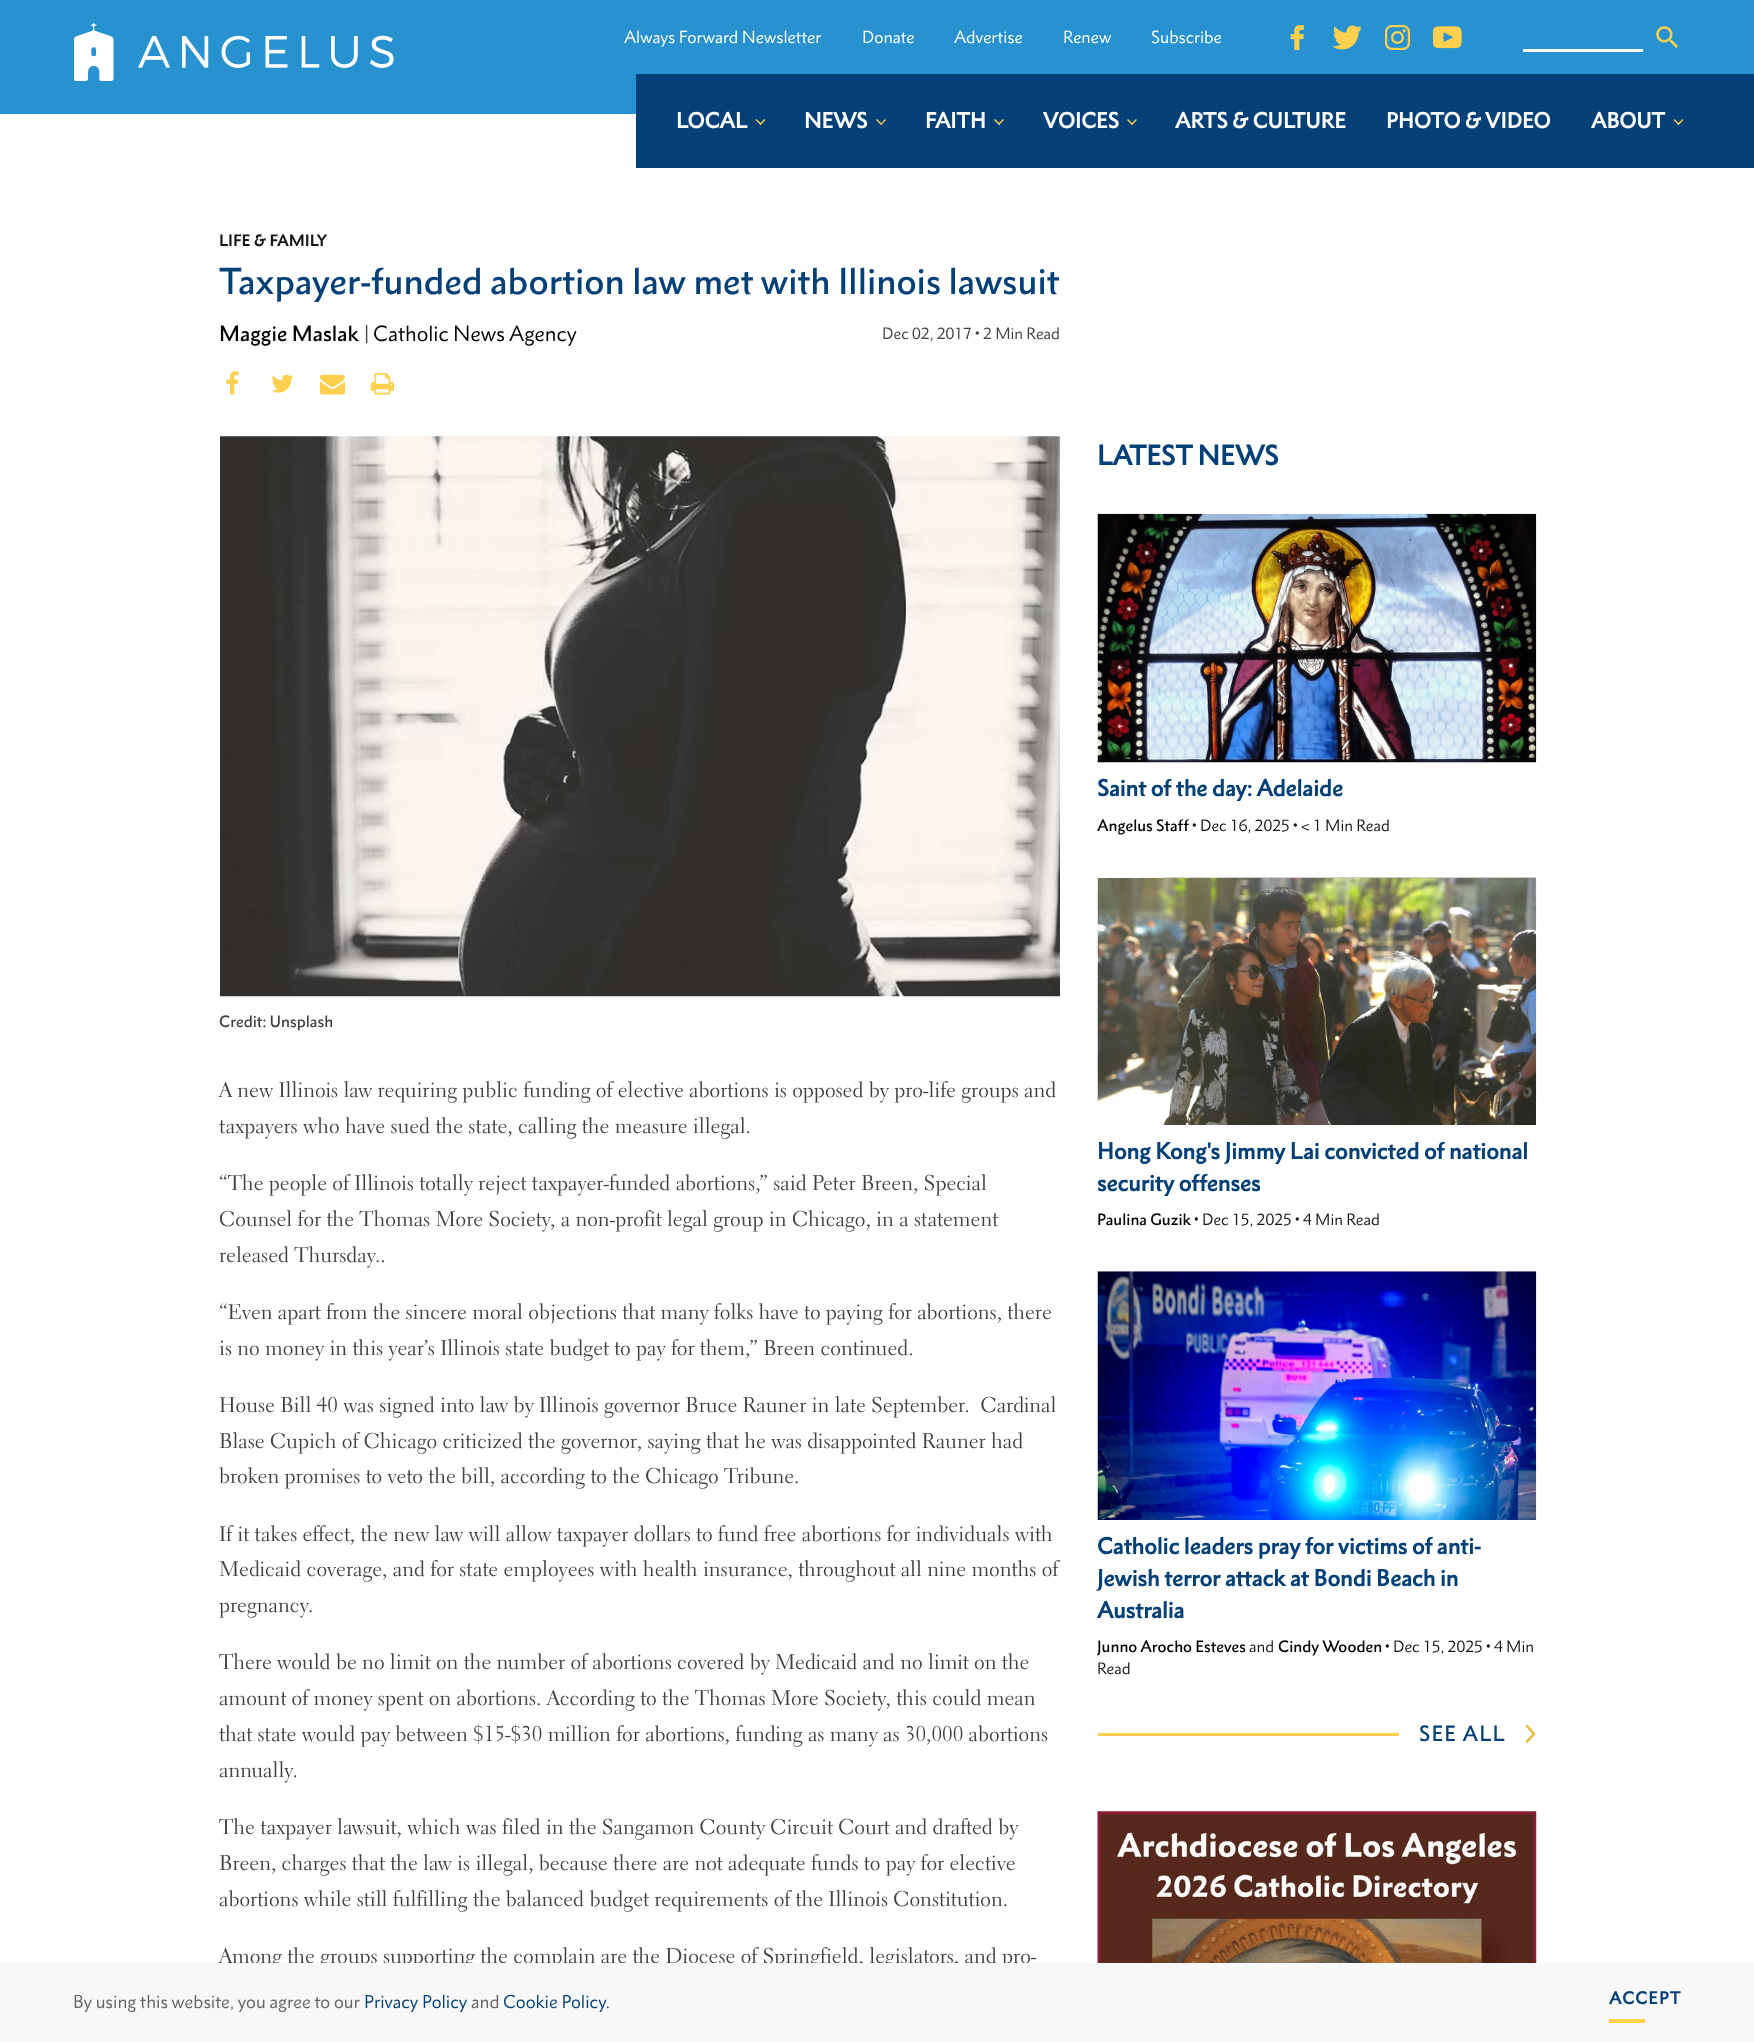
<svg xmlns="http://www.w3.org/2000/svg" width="1754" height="2042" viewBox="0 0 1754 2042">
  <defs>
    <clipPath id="clip1"><rect x="1526" y="1724" width="10" height="20"/></clipPath>
  </defs>
  <rect width="100%" height="100%" fill="#ffffff"/>
  <rect x="0" y="0" width="1754" height="114" fill="#2792cf"/>
  <image x="74" y="23" width="320" height="58" href="img1.png"/>
  <text x="624" y="43" font-family="'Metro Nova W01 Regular'" font-size="16" fill="#ffffff">Always Forward Newsletter</text>
  <text x="862" y="43" font-family="'Metro Nova W01 Regular'" font-size="16" fill="#ffffff">Donate</text>
  <text x="954" y="43" font-family="'Metro Nova W01 Regular'" font-size="16" fill="#ffffff">Advertise</text>
  <text x="1063" y="43" font-family="'Metro Nova W01 Regular'" font-size="16" fill="#ffffff">Renew</text>
  <text x="1151" y="43" font-family="'Metro Nova W01 Regular'" font-size="16" fill="#ffffff">Subscribe</text>
  <image x="1290" y="25" width="14" height="25" href="img2.png"/>
  <image x="1333" y="25" width="29" height="25" href="img3.png"/>
  <image x="1385" y="25" width="25" height="25" href="img4.png"/>
  <image x="1433" y="26" width="29" height="23" href="img5.png"/>
  <image x="1656" y="26" width="22" height="22" href="img6.png"/>
  <rect x="1523" y="49" width="120" height="3" fill="#ffffff"/>
  <rect x="636" y="74" width="1118" height="94" fill="#034078"/>
  <text x="676" y="128" font-family="'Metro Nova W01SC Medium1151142'" font-size="20" font-weight="bold" fill="#ffffff">LOCAL</text>
  <path d="M765.5 120L760.5 125L759.5 124L764.5 119Z" fill="#ffd04e"/>
  <path d="M761.5 124L760.5 125L755.5 120L756.5 119Z" fill="#ffd04e"/>
  <text x="804" y="128" font-family="'Metro Nova W01SC Medium1151142'" font-size="20" font-weight="bold" fill="#ffffff">NEWS</text>
  <path d="M886 120L881 125L880.5 124L885 119Z" fill="#ffd04e"/>
  <path d="M882 124L881 125L876 120L877 119Z" fill="#ffd04e"/>
  <text x="925" y="128" font-family="'Metro Nova W01SC Medium1151142'" font-size="20" font-weight="bold" fill="#ffffff">FAITH</text>
  <path d="M1004 120L999 125L998 124L1003 119Z" fill="#ffd04e"/>
  <path d="M1000 124L999 125L994 120L995 119Z" fill="#ffd04e"/>
  <text x="1043" y="128" font-family="'Metro Nova W01SC Medium1151142'" font-size="20" font-weight="bold" fill="#ffffff">VOICES</text>
  <path d="M1137 120L1132 125L1131 124L1136 119Z" fill="#ffd04e"/>
  <path d="M1133 124L1132 125L1127 120L1128 119Z" fill="#ffd04e"/>
  <text x="1175" y="128" font-family="'Metro Nova W01SC Medium1151142'" font-size="20" font-weight="bold" fill="#ffffff">ARTS &amp; CULTURE</text>
  <text x="1386" y="128" font-family="'Metro Nova W01SC Medium1151142'" font-size="20" font-weight="bold" fill="#ffffff">PHOTO &amp; VIDEO</text>
  <text x="1591" y="128" font-family="'Metro Nova W01SC Medium1151142'" font-size="20" font-weight="bold" fill="#ffffff">ABOUT</text>
  <path d="M1683.5 120L1678.5 125L1677.5 124L1682.5 119Z" fill="#ffd04e"/>
  <path d="M1679.5 124L1678.5 125L1673.5 120L1674.5 119Z" fill="#ffd04e"/>
  <text x="219" y="246" font-family="'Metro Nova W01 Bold'" font-size="15" font-weight="bold" fill="#161616">LIFE &amp; FAMILY</text>
  <text x="219" y="294" font-family="'Metro Nova W01SC Medium1151142'" font-size="34" font-weight="500" fill="#034078">Taxpayer-funded abortion law met with Illinois lawsuit</text>
  <text x="219" y="341" font-family="'Metro Nova W01SC Medium1151142'" font-size="20" font-weight="500" fill="#000000">Maggie Maslak</text>
  <text x="364" y="341" font-family="'Metro Nova W01 Regular'" font-size="20" fill="#404040">|</text>
  <text x="373" y="341" font-family="'Metro Nova W01 Regular'" font-size="20" fill="#000000">Catholic News Agency</text>
  <text x="882" y="339" font-family="'Metro Nova W01 Regular'" font-size="15" fill="#404040">Dec 02, 2017 • 2 Min Read</text>
  <image x="226" y="371" width="13" height="24" href="img7.png"/>
  <image x="271" y="374" width="23" height="19" href="img8.png"/>
  <image x="320" y="374" width="25" height="21" href="img9.png"/>
  <image x="370" y="373" width="24" height="22" href="img10.png"/>
  <image x="220" y="436" width="840" height="561" href="img11.png"/>
  <text x="219" y="1027" font-family="'Metro Nova W01SC Medium1151142'" font-size="15" font-weight="500" fill="#404040">Credit: Unsplash</text>
  <text x="219" y="1097" font-family="'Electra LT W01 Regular'" font-size="21.25" fill="#404040">A new Illinois law requiring public funding of elective abortions is opposed by pro-life groups and</text>
  <text x="219" y="1133" font-family="'Electra LT W01 Regular'" font-size="21.25" fill="#404040">taxpayers who have sued the state, calling the measure illegal.</text>
  <text x="219" y="1190" font-family="'Electra LT W01 Regular'" font-size="21.25" fill="#404040">“The people of Illinois totally reject taxpayer-funded abortions,” said Peter Breen, Special</text>
  <text x="219" y="1226" font-family="'Electra LT W01 Regular'" font-size="21.25" fill="#404040">Counsel for the Thomas More Society, a non-profit legal group in Chicago, in a statement</text>
  <text x="219" y="1262" font-family="'Electra LT W01 Regular'" font-size="21.25" fill="#404040">released Thursday..</text>
  <text x="219" y="1319" font-family="'Electra LT W01 Regular'" font-size="21.25" fill="#404040">“Even apart from the sincere moral objections that many folks have to paying for abortions, there</text>
  <text x="219" y="1355" font-family="'Electra LT W01 Regular'" font-size="21.25" fill="#404040">is no money in this year’s Illinois state budget to pay for them,” Breen continued.</text>
  <text x="219" y="1412" font-family="'Electra LT W01 Regular'" font-size="21.25" fill="#404040" xml:space="preserve">House Bill 40 was signed into law by Illinois governor Bruce Rauner in late September.  Cardinal</text>
  <text x="219" y="1448" font-family="'Electra LT W01 Regular'" font-size="21.25" fill="#404040">Blase Cupich of Chicago criticized the governor, saying that he was disappointed Rauner had</text>
  <text x="219" y="1483" font-family="'Electra LT W01 Regular'" font-size="21.25" fill="#404040">broken promises to veto the bill, according to the Chicago Tribune.</text>
  <text x="219" y="1541" font-family="'Electra LT W01 Regular'" font-size="21.25" fill="#404040">If it takes effect, the new law will allow taxpayer dollars to fund free abortions for individuals with</text>
  <text x="219" y="1576" font-family="'Electra LT W01 Regular'" font-size="21.25" fill="#404040">Medicaid coverage, and for state employees with health insurance, throughout all nine months of</text>
  <text x="219" y="1612" font-family="'Electra LT W01 Regular'" font-size="21.25" fill="#404040">pregnancy.</text>
  <text x="219" y="1669" font-family="'Electra LT W01 Regular'" font-size="21.25" fill="#404040">There would be no limit on the number of abortions covered by Medicaid and no limit on the</text>
  <text x="219" y="1705" font-family="'Electra LT W01 Regular'" font-size="21.25" fill="#404040">amount of money spent on abortions. According to the Thomas More Society, this could mean</text>
  <text x="219" y="1741" font-family="'Electra LT W01 Regular'" font-size="21.25" fill="#404040">that state would pay between $15-$30 million for abortions, funding as many as 30,000 abortions</text>
  <text x="219" y="1777" font-family="'Electra LT W01 Regular'" font-size="21.25" fill="#404040">annually.</text>
  <text x="219" y="1834" font-family="'Electra LT W01 Regular'" font-size="21.25" fill="#404040">The taxpayer lawsuit, which was filed in the Sangamon County Circuit Court and drafted by</text>
  <text x="219" y="1870" font-family="'Electra LT W01 Regular'" font-size="21.25" fill="#404040">Breen, charges that the law is illegal, because there are not adequate funds to pay for elective</text>
  <text x="219" y="1906" font-family="'Electra LT W01 Regular'" font-size="21.25" fill="#404040">abortions while still fulfilling the balanced budget requirements of the Illinois Constitution.</text>
  <text x="219" y="1963" font-family="'Electra LT W01 Regular'" font-size="21.25" fill="#404040">Among the groups supporting the complain are the Diocese of Springfield, legislators, and pro-</text>
  <text x="1097" y="465" font-family="'Metro Nova W01SC Medium1151142'" font-size="25.5" font-weight="bold" fill="#034078">LATEST NEWS</text>
  <image x="1097" y="513" width="440" height="250" href="img12.png"/>
  <text x="1097" y="796" font-family="'Metro Nova W01SC Medium1151142'" font-size="21.25" font-weight="bold" fill="#034078">Saint of the day: Adelaide</text>
  <text x="1097" y="831" font-family="'Metro Nova W01SC Medium1151142'" font-size="15" font-weight="500" fill="#000000">Angelus Staff</text>
  <text x="1192" y="831" font-family="'Metro Nova W01 Regular'" font-size="15" fill="#161616">• Dec 16, 2025 • &lt; 1 Min Read</text>
  <image x="1097" y="877" width="440" height="248" href="img13.png"/>
  <text x="1097" y="1159" font-family="'Metro Nova W01SC Medium1151142'" font-size="21.25" font-weight="bold" fill="#034078">Hong Kong's Jimmy Lai convicted of national</text>
  <text x="1097" y="1191" font-family="'Metro Nova W01SC Medium1151142'" font-size="21.25" font-weight="bold" fill="#034078">security offenses</text>
  <text x="1097" y="1225" font-family="'Metro Nova W01SC Medium1151142'" font-size="15" font-weight="500" fill="#000000">Paulina Guzik</text>
  <text x="1194" y="1225" font-family="'Metro Nova W01 Regular'" font-size="15" fill="#161616">• Dec 15, 2025 • 4 Min Read</text>
  <image x="1097" y="1271" width="440" height="249" href="img14.png"/>
  <text x="1097" y="1554" font-family="'Metro Nova W01SC Medium1151142'" font-size="21.25" font-weight="bold" fill="#034078">Catholic leaders pray for victims of anti-</text>
  <text x="1097" y="1586" font-family="'Metro Nova W01SC Medium1151142'" font-size="21.25" font-weight="bold" fill="#034078">Jewish terror attack at Bondi Beach in</text>
  <text x="1097" y="1618" font-family="'Metro Nova W01SC Medium1151142'" font-size="21.25" font-weight="bold" fill="#034078">Australia</text>
  <text x="1097" y="1652" font-family="'Metro Nova W01SC Medium1151142'" font-size="15" font-weight="500" fill="#000000">Junno Arocho Esteves</text>
  <text x="1249" y="1652" font-family="'Metro Nova W01 Regular'" font-size="15" fill="#161616">and</text>
  <text x="1278" y="1652" font-family="'Metro Nova W01SC Medium1151142'" font-size="15" font-weight="500" fill="#000000">Cindy Wooden</text>
  <text x="1385" y="1652" font-family="'Metro Nova W01 Regular'" font-size="15" fill="#161616">• Dec 15, 2025 • 4 Min</text>
  <text x="1097" y="1674" font-family="'Metro Nova W01 Regular'" font-size="15" fill="#161616">Read</text>
  <rect x="1098" y="1733" width="301" height="3" fill="#ffd04e"/>
  <text x="1419" y="1741" font-family="'Metro Nova W01SC Medium1151142'" font-size="20" font-weight="500" letter-spacing="1.25" fill="#034078">SEE ALL</text>
  <g clip-path="url(#clip1)">
    <path d="M1527 1726L1534 1734L1527 1741.5" fill="none" stroke="#e7bb41" stroke-width="2.5" stroke-linecap="square"/>
  </g>
  <image x="1097" y="1811" width="440" height="152" href="img15.png"/>
  <rect x="0" y="1963" width="1754" height="79" fill="#f8f8f8"/>
  <text x="73" y="2008" font-family="'Metro Nova W01 Regular'" font-size="17" fill="#636267">By using this website, you agree to our</text>
  <text x="364" y="2008" font-family="'Metro Nova W01 Regular'" font-size="17" fill="#034078">Privacy Policy</text>
  <text x="471" y="2008" font-family="'Metro Nova W01 Regular'" font-size="17" fill="#636267">and</text>
  <text x="503" y="2008" font-family="'Metro Nova W01 Regular'" font-size="17" fill="#034078">Cookie Policy.</text>
  <text x="1609" y="2004" font-family="'Metro Nova W01SC Medium1151142'" font-size="16" font-weight="bold" letter-spacing="1.25" fill="#034078">ACCEPT</text>
  <rect x="1609" y="2019" width="36" height="4" fill="#ffd04e"/>
</svg>
